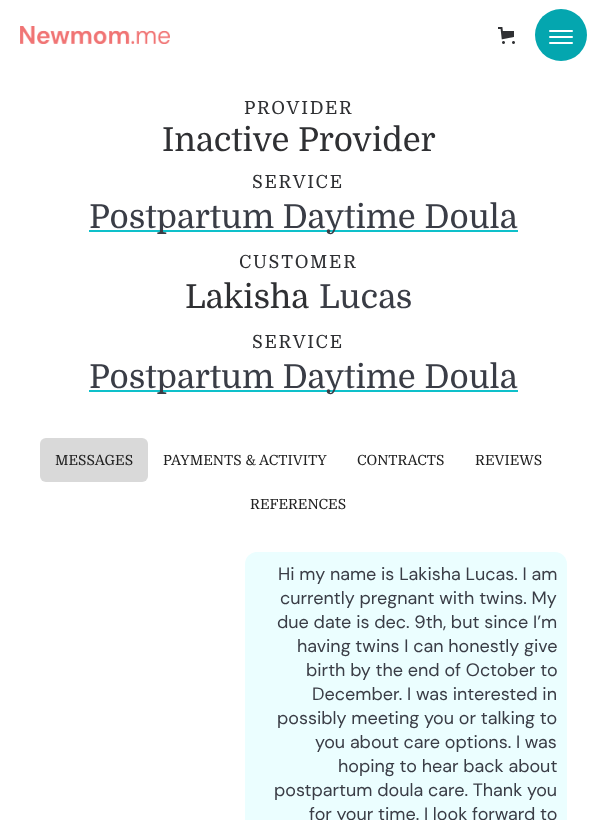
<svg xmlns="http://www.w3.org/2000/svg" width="597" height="820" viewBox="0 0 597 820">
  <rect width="100%" height="100%" fill="#ffffff"/>
  <image x="20" y="26" width="150" height="18" href="img1.png"/>
  <image x="498" y="27" width="17" height="17" href="img2.png"/>
  <circle cx="561" cy="35" r="26" fill="#04a6af"/>
  <rect x="549" y="30" width="24" height="2" rx="1" fill="#ffffff"/>
  <rect x="549" y="36" width="24" height="2" rx="1" fill="#ffffff"/>
  <rect x="549" y="42" width="24" height="2" rx="1" fill="#ffffff"/>
  <text x="244" y="114" font-family="Domine" font-size="18" letter-spacing="1.75" fill="#2f3033">PROVIDER</text>
  <text x="162" y="151" font-family="Domine" font-size="33" fill="#2f3033">Inactive Provider</text>
  <text x="252" y="188" font-family="Domine" font-size="18" letter-spacing="1.75" fill="#2f3033">SERVICE</text>
  <rect x="89" y="230" width="429" height="2" fill="#0ec0ca"/>
  <text x="89" y="228" font-family="Domine" font-size="33" fill="#3a3d46">Postpartum Daytime Doula</text>
  <text x="239" y="268" font-family="Domine" font-size="18" letter-spacing="1.75" fill="#2f3033">CUSTOMER</text>
  <text x="185" y="308" font-family="Domine" font-size="33" fill="#2f3033">Lakisha</text>
  <text x="319" y="308" font-family="Domine" font-size="33" fill="#3a3d46">Lucas</text>
  <text x="252" y="348" font-family="Domine" font-size="18" letter-spacing="1.75" fill="#2f3033">SERVICE</text>
  <rect x="89" y="390" width="429" height="2" fill="#0ec0ca"/>
  <text x="89" y="388" font-family="Domine" font-size="33" fill="#3a3d46">Postpartum Daytime Doula</text>
  <rect x="40" y="438" width="108" height="44" rx="6" fill="#d9d9d9"/>
  <text x="55" y="465" font-family="Domine" font-size="14" fill="#222222">MESSAGES</text>
  <text x="163" y="465" font-family="Domine" font-size="14" fill="#222222">PAYMENTS &amp; ACTIVITY</text>
  <text x="357" y="465" font-family="Domine" font-size="14" fill="#222222">CONTRACTS</text>
  <text x="475" y="465" font-family="Domine" font-size="14" fill="#222222">REVIEWS</text>
  <text x="250" y="509" font-family="Domine" font-size="14" fill="#222222">REFERENCES</text>
  <path d="M257 552H555C561.5 552 567 557.5 567 564V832H257C250.5 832 245 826.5 245 820V564C245 557.5 250.5 552 257 552Z" fill="#ebfeff"/>
  <text x="278" y="580" font-family="DM Sans" font-size="18" fill="#3a3d46">Hi my name is Lakisha Lucas. I am</text>
  <text x="280" y="604" font-family="DM Sans" font-size="18" fill="#3a3d46">currently pregnant with twins. My</text>
  <text x="277" y="628" font-family="DM Sans" font-size="18" fill="#3a3d46">due date is dec. 9th, but since I’m</text>
  <text x="297" y="652" font-family="DM Sans" font-size="18" fill="#3a3d46">having twins I can honestly give</text>
  <text x="306" y="676" font-family="DM Sans" font-size="18" fill="#3a3d46">birth by the end of October to</text>
  <text x="312" y="700" font-family="DM Sans" font-size="18" fill="#3a3d46">December. I was interested in</text>
  <text x="277" y="724" font-family="DM Sans" font-size="18" fill="#3a3d46">possibly meeting you or talking to</text>
  <text x="315" y="748" font-family="DM Sans" font-size="18" fill="#3a3d46">you about care options. I was</text>
  <text x="338" y="772" font-family="DM Sans" font-size="18" fill="#3a3d46">hoping to hear back about</text>
  <text x="274" y="796" font-family="DM Sans" font-size="18" fill="#3a3d46">postpartum doula care. Thank you</text>
  <text x="309" y="820" font-family="DM Sans" font-size="18" fill="#3a3d46">for your time. I look forward to</text>
</svg>
